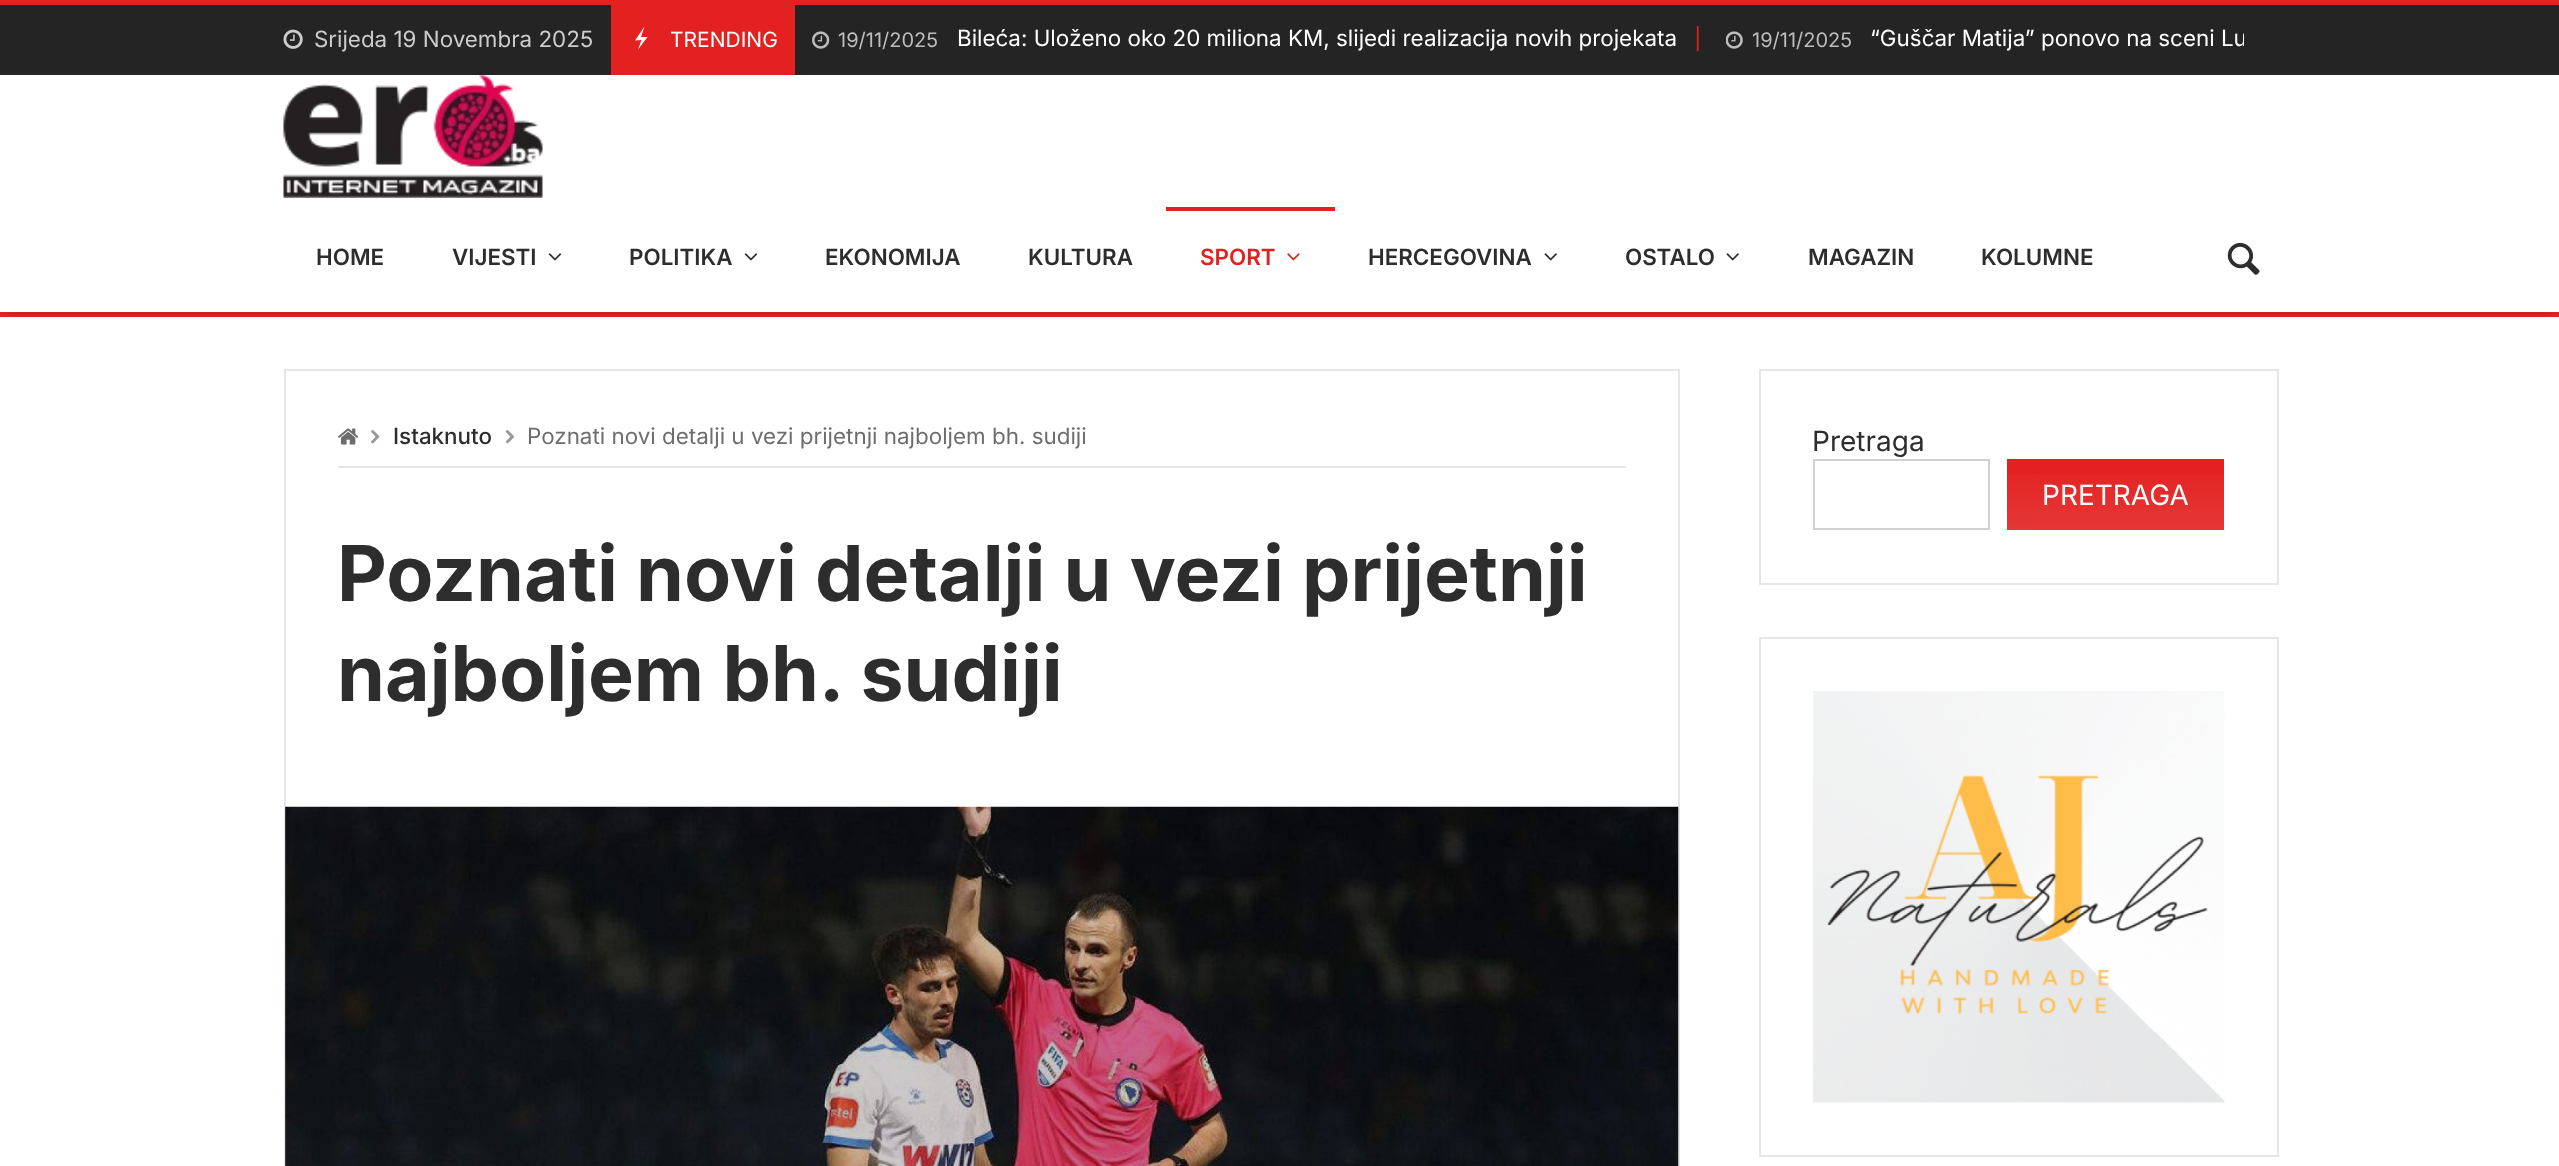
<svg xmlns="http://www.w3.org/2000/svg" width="2559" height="1166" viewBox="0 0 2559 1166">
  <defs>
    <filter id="blur1" x="-50%" y="-200%" width="200%" height="500%"><feGaussianBlur stdDeviation="5"/></filter>
    <clipPath id="clip1"><rect x="812" y="26" width="1432" height="28"/></clipPath>
    <linearGradient id="g1" gradientUnits="userSpaceOnUse" x1="2116" y1="459" x2="2116" y2="530"><stop offset="0" stop-color="#ffffff" stop-opacity="0"/><stop offset="1" stop-color="#ffffff" stop-opacity="0.1"/></linearGradient>
  </defs>
  <rect width="100%" height="100%" fill="#ffffff"/>
  <rect x="0" y="0" width="2559" height="5" fill="#e32121"/>
  <rect x="0" y="312" width="2559" height="5" fill="#e32121"/>
  <rect x="7" y="18" width="2546" height="292" fill="#000000" fill-opacity="0.3" filter="url(#blur1)"/>
  <rect x="0" y="75" width="2559" height="237" fill="#ffffff"/>
  <rect x="0" y="5" width="2559" height="70" fill="#242424"/>
  <image x="283" y="29" width="20" height="20" href="img1.png"/>
  <text x="314" y="47" font-family="Inter" font-size="22.4" fill="#cccccc">Srijeda 19 Novembra 2025</text>
  <rect x="611" y="5" width="184" height="70" fill="#e32121"/>
  <path d="M641 37H647.5L638 49.5L641.5 40L635 40.5L644.5 26.5Z" fill="#ffffff"/>
  <text x="670" y="47" font-family="Inter" font-size="21" fill="#ffffff">TRENDING</text>
  <image x="812" y="31" width="18" height="18" href="img2.png"/>
  <text x="838" y="47" font-family="Inter" font-size="20" fill="#bdbdbd">19/11/2025</text>
  <text x="957" y="46" font-family="Inter" font-size="22.4" fill="#ffffff">Bileća: Uloženo oko 20 miliona KM, slijedi realizacija novih projekata</text>
  <g clip-path="url(#clip1)">
    <text x="1694" y="46" font-family="Inter" font-size="22.4" fill="#e32121">|</text>
  </g>
  <image x="1726" y="31" width="17" height="18" href="img3.png"/>
  <text x="1752" y="47" font-family="Inter" font-size="20" fill="#bdbdbd">19/11/2025</text>
  <g clip-path="url(#clip1)">
    <text x="1870" y="46" font-family="Inter" font-size="22.4" fill="#ffffff">“Guščar Matija” ponovo na sceni Lu</text>
  </g>
  <image x="283" y="75" width="260" height="123" href="img4.png"/>
  <text x="316" y="265" font-family="Inter" font-size="22.4" font-weight="600" fill="#2d2d2d">HOME</text>
  <text x="452" y="265" font-family="Inter" font-size="22.4" font-weight="600" fill="#2d2d2d">VIJESTI</text>
  <image x="548" y="253" width="14" height="8" href="img5.png"/>
  <text x="629" y="265" font-family="Inter" font-size="22.4" font-weight="600" fill="#2d2d2d">POLITIKA</text>
  <image x="744" y="253" width="14" height="8" href="img5.png"/>
  <text x="825" y="265" font-family="Inter" font-size="22.4" font-weight="600" fill="#2d2d2d">EKONOMIJA</text>
  <text x="1028" y="265" font-family="Inter" font-size="22.4" font-weight="600" fill="#2d2d2d">KULTURA</text>
  <rect x="1166" y="207" width="169" height="4" fill="#e32121"/>
  <text x="1200" y="265" font-family="Inter" font-size="22.4" font-weight="600" fill="#e32121">SPORT</text>
  <image x="1287" y="253" width="13" height="8" href="img6.png"/>
  <text x="1368" y="265" font-family="Inter" font-size="22.4" font-weight="600" fill="#2d2d2d">HERCEGOVINA</text>
  <image x="1544" y="253" width="13" height="8" href="img7.png"/>
  <text x="1625" y="265" font-family="Inter" font-size="22.4" font-weight="600" fill="#2d2d2d">OSTALO</text>
  <image x="1726" y="253" width="13" height="8" href="img7.png"/>
  <text x="1808" y="265" font-family="Inter" font-size="22.4" font-weight="600" fill="#2d2d2d">MAGAZIN</text>
  <text x="1981" y="265" font-family="Inter" font-size="22.4" font-weight="600" fill="#2d2d2d">KOLUMNE</text>
  <image x="2227" y="242" width="33" height="33" href="img8.png"/>
  <rect x="285" y="370" width="1394" height="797" fill="none" stroke="#e6e6e6" stroke-width="2"/>
  <rect x="338" y="466" width="1288" height="2" fill="#e6e6e6"/>
  <image x="338" y="428" width="21" height="17" href="img9.png"/>
  <image x="371" y="430" width="9" height="14" href="img10.png"/>
  <text x="393" y="444" font-family="Inter" font-size="22.4" font-weight="500" fill="#2d2d2d">Istaknuto</text>
  <image x="505" y="430" width="10" height="14" href="img11.png"/>
  <text x="527" y="444" font-family="Inter" font-size="22.4" fill="#6d6d6d">Poznati novi detalji u vezi prijetnji najboljem bh. sudiji</text>
  <text x="337" y="601" font-family="Inter" font-size="77" font-weight="bold" fill="#2d2d2d">Poznati novi detalji u vezi prijetnji</text>
  <text x="337" y="701" font-family="Inter" font-size="77" font-weight="bold" fill="#2d2d2d">najboljem bh. sudiji</text>
  <image x="285" y="806" width="1394" height="360" href="img12.png"/>
  <rect x="285" y="807" width="1393" height="359" fill="#000000" fill-opacity="0.2"/>
  <rect x="1760" y="370" width="518" height="214" fill="none" stroke="#e6e6e6" stroke-width="2"/>
  <text x="1812" y="451" font-family="Inter" font-size="28" fill="#2d2d2d">Pretraga</text>
  <rect x="1814" y="460" width="175" height="69" fill="none" stroke="#d1d1d1" stroke-width="2"/>
  <rect x="2007" y="459" width="217" height="71" fill="#e32121"/>
  <rect x="2007" y="474" width="217" height="56" fill="url(#g1)"/>
  <text x="2042" y="505" font-family="Inter" font-size="28" fill="#ffffff">PRETRAGA</text>
  <rect x="1760" y="638" width="518" height="518" fill="none" stroke="#e6e6e6" stroke-width="2"/>
  <image x="1813" y="691" width="412" height="412" href="img13.png"/>
</svg>
